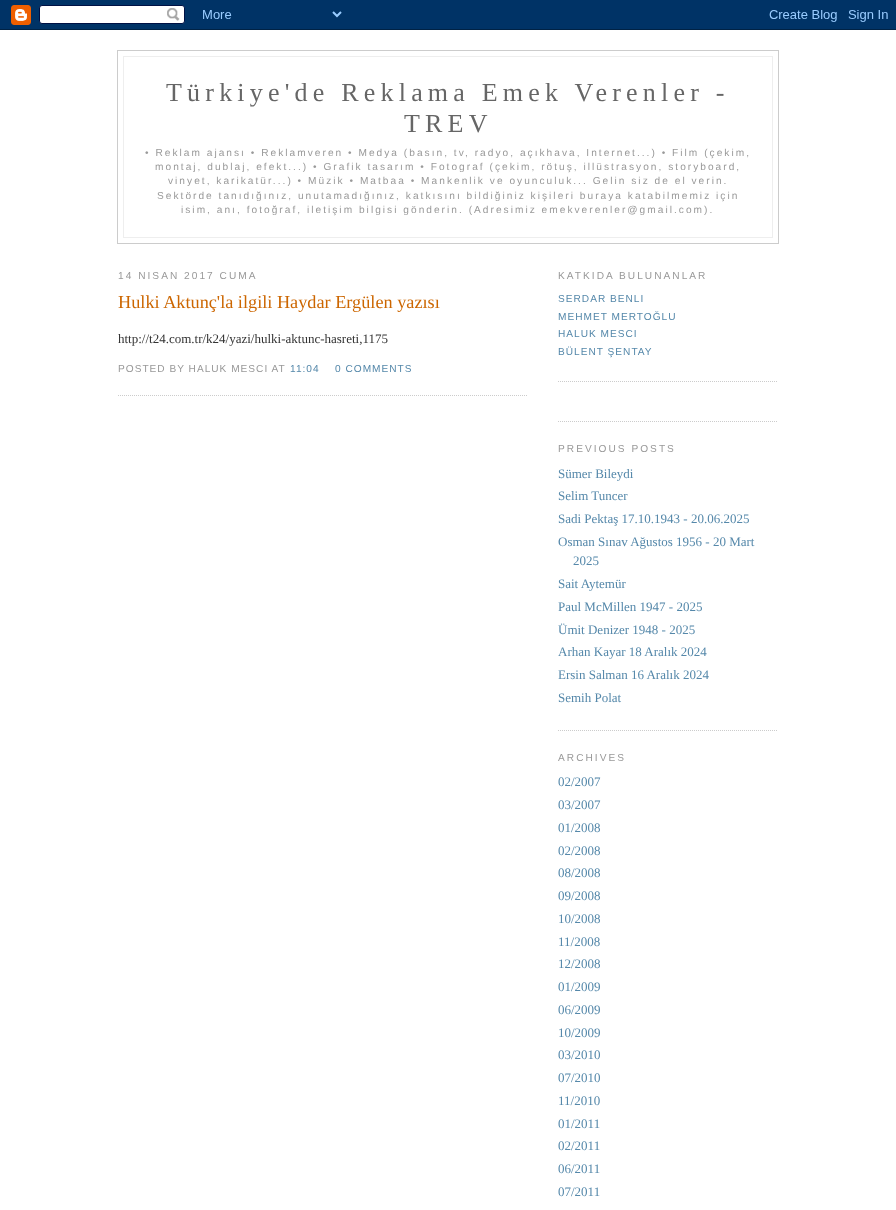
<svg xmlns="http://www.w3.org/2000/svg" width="896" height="1210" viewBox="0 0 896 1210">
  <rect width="100%" height="100%" fill="#ffffff"/>
  <image x="0" y="0" width="896" height="30" href="img1.png"/>
  <rect x="117.5" y="50.5" width="661" height="193" fill="none" stroke="#cccccc"/>
  <rect x="123" y="56" width="650" height="1" fill="#eeeeee"/>
  <rect x="772" y="56" width="1" height="182" fill="#eeeeee"/>
  <rect x="123" y="56" width="1" height="90" fill="#eeeeee"/>
  <text x="166" y="101" font-family="Liberation Serif" font-size="26" letter-spacing="5.2" fill="#666666">Türkiye'de Reklama Emek Verenler -</text>
  <text x="404" y="132" font-family="Liberation Serif" font-size="26" letter-spacing="5.2" fill="#666666">TREV</text>
  <rect x="123" y="237" width="650" height="1" fill="#eeeeee"/>
  <rect x="123" y="146" width="1" height="92" fill="#eeeeee"/>
  <text x="145" y="156" font-family="Liberation Sans" font-size="10.15" letter-spacing="2.03" fill="#999999">• Reklam ajansı • Reklamveren • Medya (basın, tv, radyo, açıkhava, Internet...) • Film (çekim,</text>
  <text x="155" y="170" font-family="Liberation Sans" font-size="10.15" letter-spacing="2.03" fill="#999999">montaj, dublaj, efekt...) • Grafik tasarım • Fotograf (çekim, rötuş, illüstrasyon, storyboard,</text>
  <text x="168" y="184" font-family="Liberation Sans" font-size="10.15" letter-spacing="2.03" fill="#999999">vinyet, karikatür...) • Müzik • Matbaa • Mankenlik ve oyunculuk... Gelin siz de el verin.</text>
  <text x="157" y="199" font-family="Liberation Sans" font-size="10.15" letter-spacing="2.03" fill="#999999">Sektörde tanıdığınız, unutamadığınız, katkısını bildiğiniz kişileri buraya katabilmemiz için</text>
  <text x="181" y="213" font-family="Liberation Sans" font-size="10.15" letter-spacing="2.03" fill="#999999">isim, anı, fotoğraf, iletişim bilgisi gönderin. (Adresimiz emekverenler@gmail.com).</text>
  <text x="118" y="279" font-family="Liberation Sans" font-size="10.15" letter-spacing="2.03" fill="#999999">14 NISAN 2017 CUMA</text>
  <path d="M118 395.5H528" fill="none" stroke="#cccccc" stroke-dasharray="1 1"/>
  <text x="118" y="308" font-family="Liberation Serif" font-size="18.25" fill="#cc6600">Hulki Aktunç'la ilgili Haydar Ergülen yazısı</text>
  <text x="118" y="343" font-family="Liberation Serif" font-size="13" fill="#333333">http://t24.com.tr/k24/yazi/hulki-aktunc-hasreti,1175</text>
  <text x="118" y="372" font-family="Liberation Sans" font-size="10.15" letter-spacing="1" fill="#999999">POSTED BY HALUK MESCI AT</text>
  <text x="290" y="372" font-family="Liberation Sans" font-size="10.15" letter-spacing="1" fill="#5588aa">11:04</text>
  <text x="335" y="372" font-family="Liberation Sans" font-size="10.15" letter-spacing="1" fill="#5588aa">0 COMMENTS</text>
  <path d="M558 421.5H778" fill="none" stroke="#cccccc" stroke-dasharray="1 1"/>
  <text x="558" y="279" font-family="Liberation Sans" font-size="10.15" letter-spacing="2.03" fill="#999999">KATKIDA BULUNANLAR</text>
  <path d="M558 381.5H778" fill="none" stroke="#cccccc" stroke-dasharray="1 1"/>
  <text x="558" y="302" font-family="Liberation Sans" font-size="10.15" letter-spacing="1" fill="#5588aa">SERDAR BENLI</text>
  <text x="558" y="320" font-family="Liberation Sans" font-size="10.15" letter-spacing="1" fill="#5588aa">MEHMET MERTOĞLU</text>
  <text x="558" y="337" font-family="Liberation Sans" font-size="10.15" letter-spacing="1" fill="#5588aa">HALUK MESCI</text>
  <text x="558" y="355" font-family="Liberation Sans" font-size="10.15" letter-spacing="1" fill="#5588aa">BÜLENT ŞENTAY</text>
  <text x="558" y="452" font-family="Liberation Sans" font-size="10.15" letter-spacing="2.03" fill="#999999">PREVIOUS POSTS</text>
  <path d="M558 730.5H778" fill="none" stroke="#cccccc" stroke-dasharray="1 1"/>
  <text x="558" y="478" font-family="Liberation Serif" font-size="13" fill="#5588aa">Sümer Bileydi</text>
  <text x="558" y="500" font-family="Liberation Serif" font-size="13" fill="#5588aa">Selim Tuncer</text>
  <text x="558" y="523" font-family="Liberation Serif" font-size="13" fill="#5588aa">Sadi Pektaş 17.10.1943 - 20.06.2025</text>
  <text x="558" y="546" font-family="Liberation Serif" font-size="13" fill="#5588aa">Osman Sınav Ağustos 1956 - 20 Mart</text>
  <text x="573" y="565" font-family="Liberation Serif" font-size="13" fill="#5588aa">2025</text>
  <text x="558" y="588" font-family="Liberation Serif" font-size="13" fill="#5588aa">Sait Aytemür</text>
  <text x="558" y="611" font-family="Liberation Serif" font-size="13" fill="#5588aa">Paul McMillen 1947 - 2025</text>
  <text x="558" y="634" font-family="Liberation Serif" font-size="13" fill="#5588aa">Ümit Denizer 1948 - 2025</text>
  <text x="558" y="656" font-family="Liberation Serif" font-size="13" fill="#5588aa">Arhan Kayar 18 Aralık 2024</text>
  <text x="558" y="679" font-family="Liberation Serif" font-size="13" fill="#5588aa">Ersin Salman 16 Aralık 2024</text>
  <text x="558" y="702" font-family="Liberation Serif" font-size="13" fill="#5588aa">Semih Polat</text>
  <text x="558" y="761" font-family="Liberation Sans" font-size="10.15" letter-spacing="2.03" fill="#999999">ARCHIVES</text>
  <text x="558" y="786" font-family="Liberation Serif" font-size="13" fill="#5588aa">02/2007</text>
  <text x="558" y="809" font-family="Liberation Serif" font-size="13" fill="#5588aa">03/2007</text>
  <text x="558" y="832" font-family="Liberation Serif" font-size="13" fill="#5588aa">01/2008</text>
  <text x="558" y="855" font-family="Liberation Serif" font-size="13" fill="#5588aa">02/2008</text>
  <text x="558" y="877" font-family="Liberation Serif" font-size="13" fill="#5588aa">08/2008</text>
  <text x="558" y="900" font-family="Liberation Serif" font-size="13" fill="#5588aa">09/2008</text>
  <text x="558" y="923" font-family="Liberation Serif" font-size="13" fill="#5588aa">10/2008</text>
  <text x="558" y="946" font-family="Liberation Serif" font-size="13" fill="#5588aa">11/2008</text>
  <text x="558" y="968" font-family="Liberation Serif" font-size="13" fill="#5588aa">12/2008</text>
  <text x="558" y="991" font-family="Liberation Serif" font-size="13" fill="#5588aa">01/2009</text>
  <text x="558" y="1014" font-family="Liberation Serif" font-size="13" fill="#5588aa">06/2009</text>
  <text x="558" y="1037" font-family="Liberation Serif" font-size="13" fill="#5588aa">10/2009</text>
  <text x="558" y="1059" font-family="Liberation Serif" font-size="13" fill="#5588aa">03/2010</text>
  <text x="558" y="1082" font-family="Liberation Serif" font-size="13" fill="#5588aa">07/2010</text>
  <text x="558" y="1105" font-family="Liberation Serif" font-size="13" fill="#5588aa">11/2010</text>
  <text x="558" y="1128" font-family="Liberation Serif" font-size="13" fill="#5588aa">01/2011</text>
  <text x="558" y="1150" font-family="Liberation Serif" font-size="13" fill="#5588aa">02/2011</text>
  <text x="558" y="1173" font-family="Liberation Serif" font-size="13" fill="#5588aa">06/2011</text>
  <text x="558" y="1196" font-family="Liberation Serif" font-size="13" fill="#5588aa">07/2011</text>
</svg>
